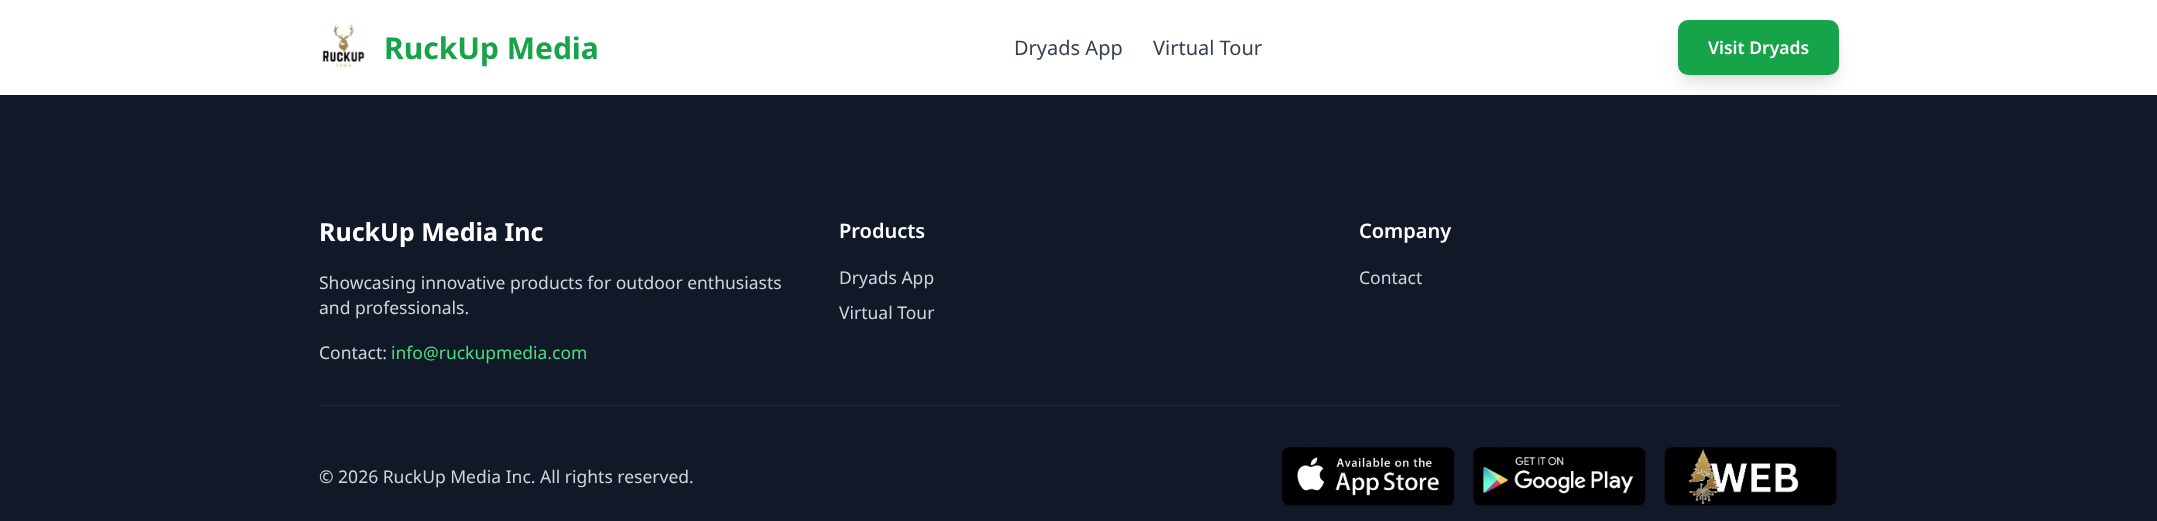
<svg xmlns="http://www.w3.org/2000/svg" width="2157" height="521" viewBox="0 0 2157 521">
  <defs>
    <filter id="blur1" x="-50%" y="-200%" width="200%" height="500%"><feGaussianBlur stdDeviation="4"/></filter>
    <filter id="blur2" x="-50%" y="-200%" width="200%" height="500%"><feGaussianBlur stdDeviation="9.5"/></filter>
  </defs>
  <rect width="100%" height="100%" fill="#ffffff"/>
  <image x="322" y="24" width="43" height="44" href="img1.png"/>
  <text x="384" y="59" font-family="Noto Sans" font-size="30" font-weight="bold" fill="#16a34a">RuckUp Media</text>
  <text x="1014" y="55" font-family="Noto Sans" font-size="20" fill="#374151">Dryads App</text>
  <text x="1153" y="55" font-family="Noto Sans" font-size="20" fill="#374151">Virtual Tour</text>
  <rect x="1683" y="30" width="151" height="45" rx="5" fill="#000000" fill-opacity="0.1" filter="url(#blur1)"/>
  <rect x="0" y="95" width="2157" height="426" fill="#111827"/>
  <rect x="1681" y="36" width="154" height="48" rx="6" fill="#000000" fill-opacity="0.1" filter="url(#blur2)"/>
  <rect x="1678" y="20" width="161" height="55" rx="10" fill="#16a34a"/>
  <text x="1708" y="54" font-family="Noto Sans" font-size="17.5" font-weight="600" fill="#ffffff">Visit Dryads</text>
  <text x="319" y="241" font-family="Noto Sans" font-size="25" font-weight="bold" fill="#ffffff">RuckUp Media Inc</text>
  <text x="319" y="289" font-family="Noto Sans" font-size="17.5" fill="#d1d5db">Showcasing innovative products for outdoor enthusiasts</text>
  <text x="319" y="314" font-family="Noto Sans" font-size="17.5" fill="#d1d5db">and professionals.</text>
  <text x="319" y="359" font-family="Noto Sans" font-size="17.5" fill="#d1d5db">Contact:</text>
  <text x="391" y="359" font-family="Noto Sans" font-size="17.5" fill="#4ade80">info@ruckupmedia.com</text>
  <text x="839" y="238" font-family="Noto Sans" font-size="20" font-weight="600" fill="#ffffff">Products</text>
  <text x="839" y="284" font-family="Noto Sans" font-size="17.5" fill="#d1d5db">Dryads App</text>
  <text x="839" y="319" font-family="Noto Sans" font-size="17.5" fill="#d1d5db">Virtual Tour</text>
  <text x="1359" y="238" font-family="Noto Sans" font-size="20" font-weight="600" fill="#ffffff">Company</text>
  <text x="1359" y="284" font-family="Noto Sans" font-size="17.5" fill="#d1d5db">Contact</text>
  <rect x="319" y="405" width="1520" height="1" fill="#1f2937"/>
  <text x="319" y="483" font-family="Noto Sans" font-size="17.5" fill="#d1d5db">© 2026 RuckUp Media Inc. All rights reserved.</text>
  <image x="1282" y="447" width="173" height="59" href="img2.png"/>
  <image x="1473" y="447" width="173" height="59" href="img3.png"/>
  <image x="1664" y="447" width="173" height="59" href="img4.png"/>
</svg>
